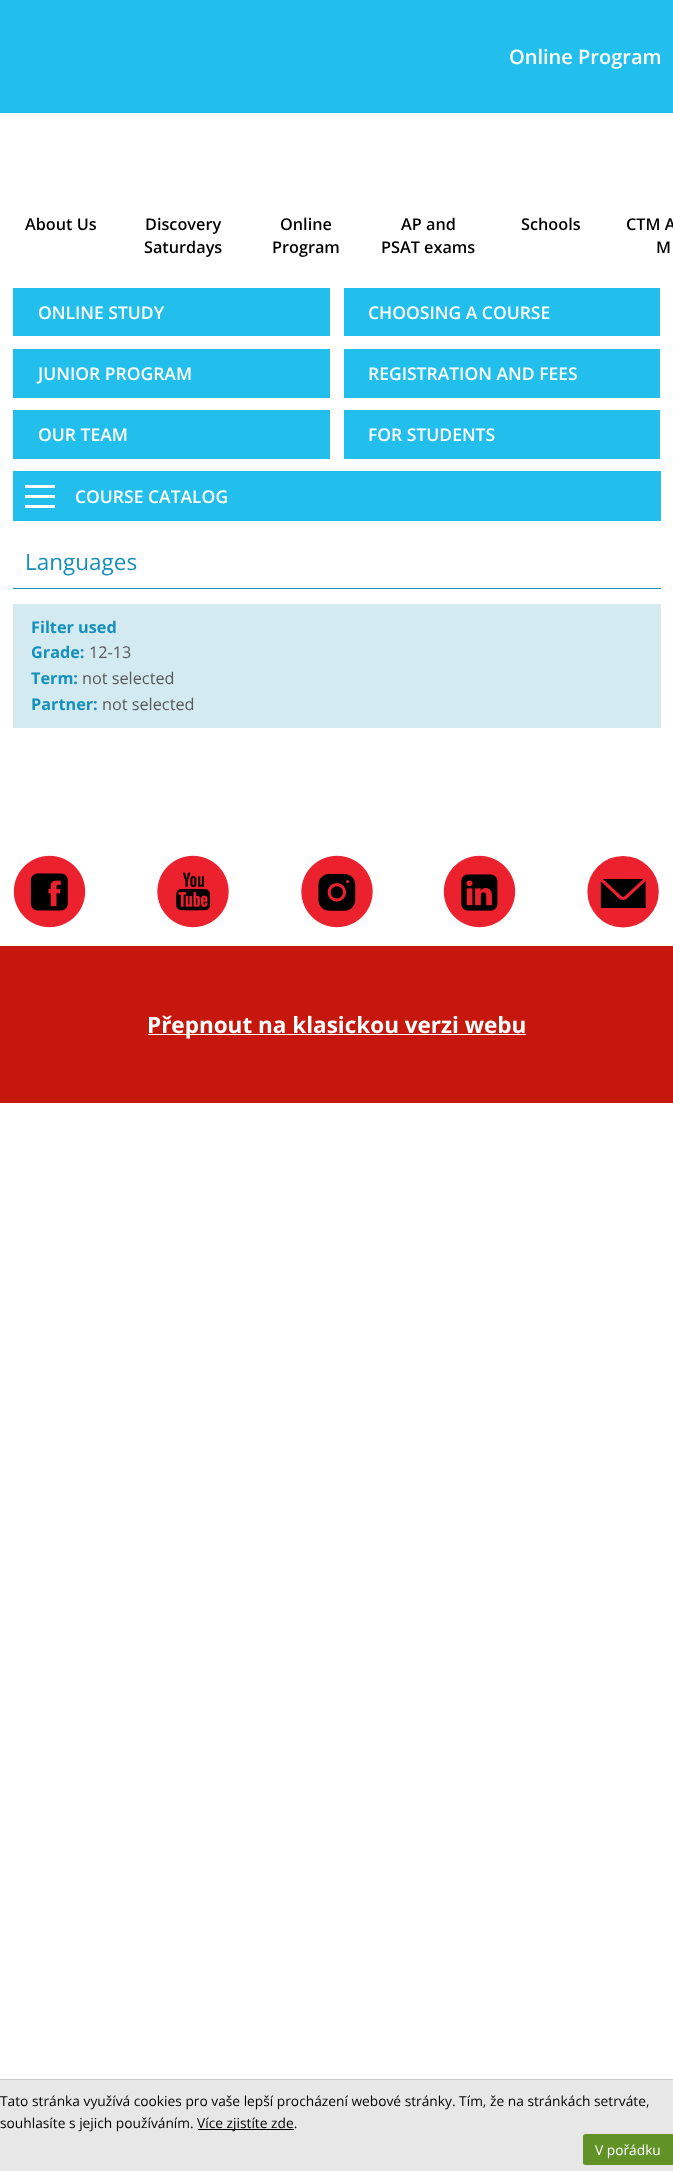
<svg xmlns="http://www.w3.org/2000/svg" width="673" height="2171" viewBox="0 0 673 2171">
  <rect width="100%" height="100%" fill="#ffffff"/>
  <rect x="0" y="0" width="673" height="113" fill="#22beec"/>
  <text x="509" y="64" font-family="Open Sans" font-size="20" font-weight="600" fill="#ffffff">Online Program</text>
  <text x="25" y="230" font-family="Open Sans" font-size="16.25" font-weight="600" fill="#000000">About Us</text>
  <text x="145" y="230" font-family="Open Sans" font-size="16.25" font-weight="600" fill="#000000">Discovery</text>
  <text x="144" y="253" font-family="Open Sans" font-size="16.25" font-weight="600" fill="#000000">Saturdays</text>
  <text x="280" y="230" font-family="Open Sans" font-size="16.25" font-weight="600" fill="#000000">Online</text>
  <text x="272" y="253" font-family="Open Sans" font-size="16.25" font-weight="600" fill="#000000">Program</text>
  <text x="401" y="230" font-family="Open Sans" font-size="16.25" font-weight="600" fill="#000000">AP and</text>
  <text x="381" y="253" font-family="Open Sans" font-size="16.25" font-weight="600" fill="#000000">PSAT exams</text>
  <text x="521" y="230" font-family="Open Sans" font-size="16.25" font-weight="600" fill="#000000">Schools</text>
  <text x="626" y="230" font-family="Open Sans" font-size="16.25" font-weight="600" fill="#000000">CTM A</text>
  <text x="656" y="253" font-family="Open Sans" font-size="16.25" font-weight="600" fill="#000000">M</text>
  <rect x="13" y="288" width="317" height="48" fill="#22beec"/>
  <text x="38" y="319" font-family="Open Sans" font-size="17.5" font-weight="600" fill="#ffffff">ONLINE STUDY</text>
  <rect x="344" y="288" width="316" height="48" fill="#22beec"/>
  <text x="368" y="319" font-family="Open Sans" font-size="17.5" font-weight="600" fill="#ffffff">CHOOSING A COURSE</text>
  <rect x="13" y="349" width="317" height="49" fill="#22beec"/>
  <text x="38" y="380" font-family="Open Sans" font-size="17.5" font-weight="600" fill="#ffffff">JUNIOR PROGRAM</text>
  <rect x="344" y="349" width="316" height="49" fill="#22beec"/>
  <text x="368" y="380" font-family="Open Sans" font-size="17.5" font-weight="600" fill="#ffffff">REGISTRATION AND FEES</text>
  <rect x="13" y="410" width="317" height="49" fill="#22beec"/>
  <text x="38" y="441" font-family="Open Sans" font-size="17.5" font-weight="600" fill="#ffffff">OUR TEAM</text>
  <rect x="344" y="410" width="316" height="49" fill="#22beec"/>
  <text x="368" y="441" font-family="Open Sans" font-size="17.5" font-weight="600" fill="#ffffff">FOR STUDENTS</text>
  <rect x="13" y="471" width="648" height="50" fill="#22beec"/>
  <rect x="25" y="495" width="30" height="3" fill="#ffffff"/>
  <rect x="25" y="485" width="30" height="3" fill="#ffffff"/>
  <rect x="25" y="505" width="30" height="3" fill="#ffffff"/>
  <text x="75" y="503" font-family="Open Sans" font-size="17.5" font-weight="600" fill="#ffffff">COURSE CATALOG</text>
  <rect x="13" y="588" width="648" height="1" fill="#1690bb"/>
  <text x="25" y="570" font-family="Open Sans" font-size="22.5" fill="#1690bb">Languages</text>
  <rect x="13" y="604" width="648" height="124" fill="#d3eaf0"/>
  <text x="31" y="633" font-family="Open Sans" font-size="16.25" font-weight="bold" fill="#1690bb">Filter used</text>
  <text x="31" y="658" font-family="Open Sans" font-size="16.25" font-weight="bold" fill="#1690bb">Grade:</text>
  <text x="89" y="658" font-family="Open Sans" font-size="16.25" fill="#58595b">12-13</text>
  <text x="31" y="684" font-family="Open Sans" font-size="16.25" font-weight="bold" fill="#1690bb">Term:</text>
  <text x="82" y="684" font-family="Open Sans" font-size="16.25" fill="#58595b">not selected</text>
  <text x="31" y="710" font-family="Open Sans" font-size="16.25" font-weight="bold" fill="#1690bb">Partner:</text>
  <text x="102" y="710" font-family="Open Sans" font-size="16.25" fill="#58595b">not selected</text>
  <image x="13" y="855" width="73" height="73" href="img1.png"/>
  <image x="157" y="855" width="72" height="73" href="img2.png"/>
  <image x="301" y="855" width="72" height="73" href="img3.png"/>
  <image x="443" y="855" width="73" height="73" href="img4.png"/>
  <image x="587" y="856" width="72" height="72" href="img5.png"/>
  <rect x="0" y="946" width="673" height="157" fill="#c5170c"/>
  <rect x="148" y="1034" width="378" height="1" fill="#ffffff"/>
  <text x="147" y="1033" font-family="Open Sans" font-size="22.5" font-weight="bold" fill="#ffffff">Přepnout na klasickou verzi webu</text>
  <rect x="0" y="2080" width="673" height="91" fill="#e7e7e7"/>
  <rect x="0" y="2079" width="673" height="1" fill="#c9c9c9"/>
  <text x="0" y="2106" font-family="Open Sans" font-size="13.75" fill="#000000">Tato stránka využívá cookies pro vaše lepší procházení webové stránky. Tím, že na stránkách setrváte,</text>
  <text x="0" y="2128" font-family="Open Sans" font-size="13.75" fill="#000000">souhlasíte s jejich používáním.</text>
  <rect x="198" y="2129" width="96" height="1" fill="#000000"/>
  <text x="197" y="2128" font-family="Open Sans" font-size="13.75" fill="#000000">Více zjistíte zde.</text>
  <rect x="583" y="2134" width="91" height="31" rx="2.5" fill="#619227"/>
  <text x="595" y="2155" font-family="Open Sans" font-size="13.75" fill="#ffffff">V pořádku</text>
</svg>
